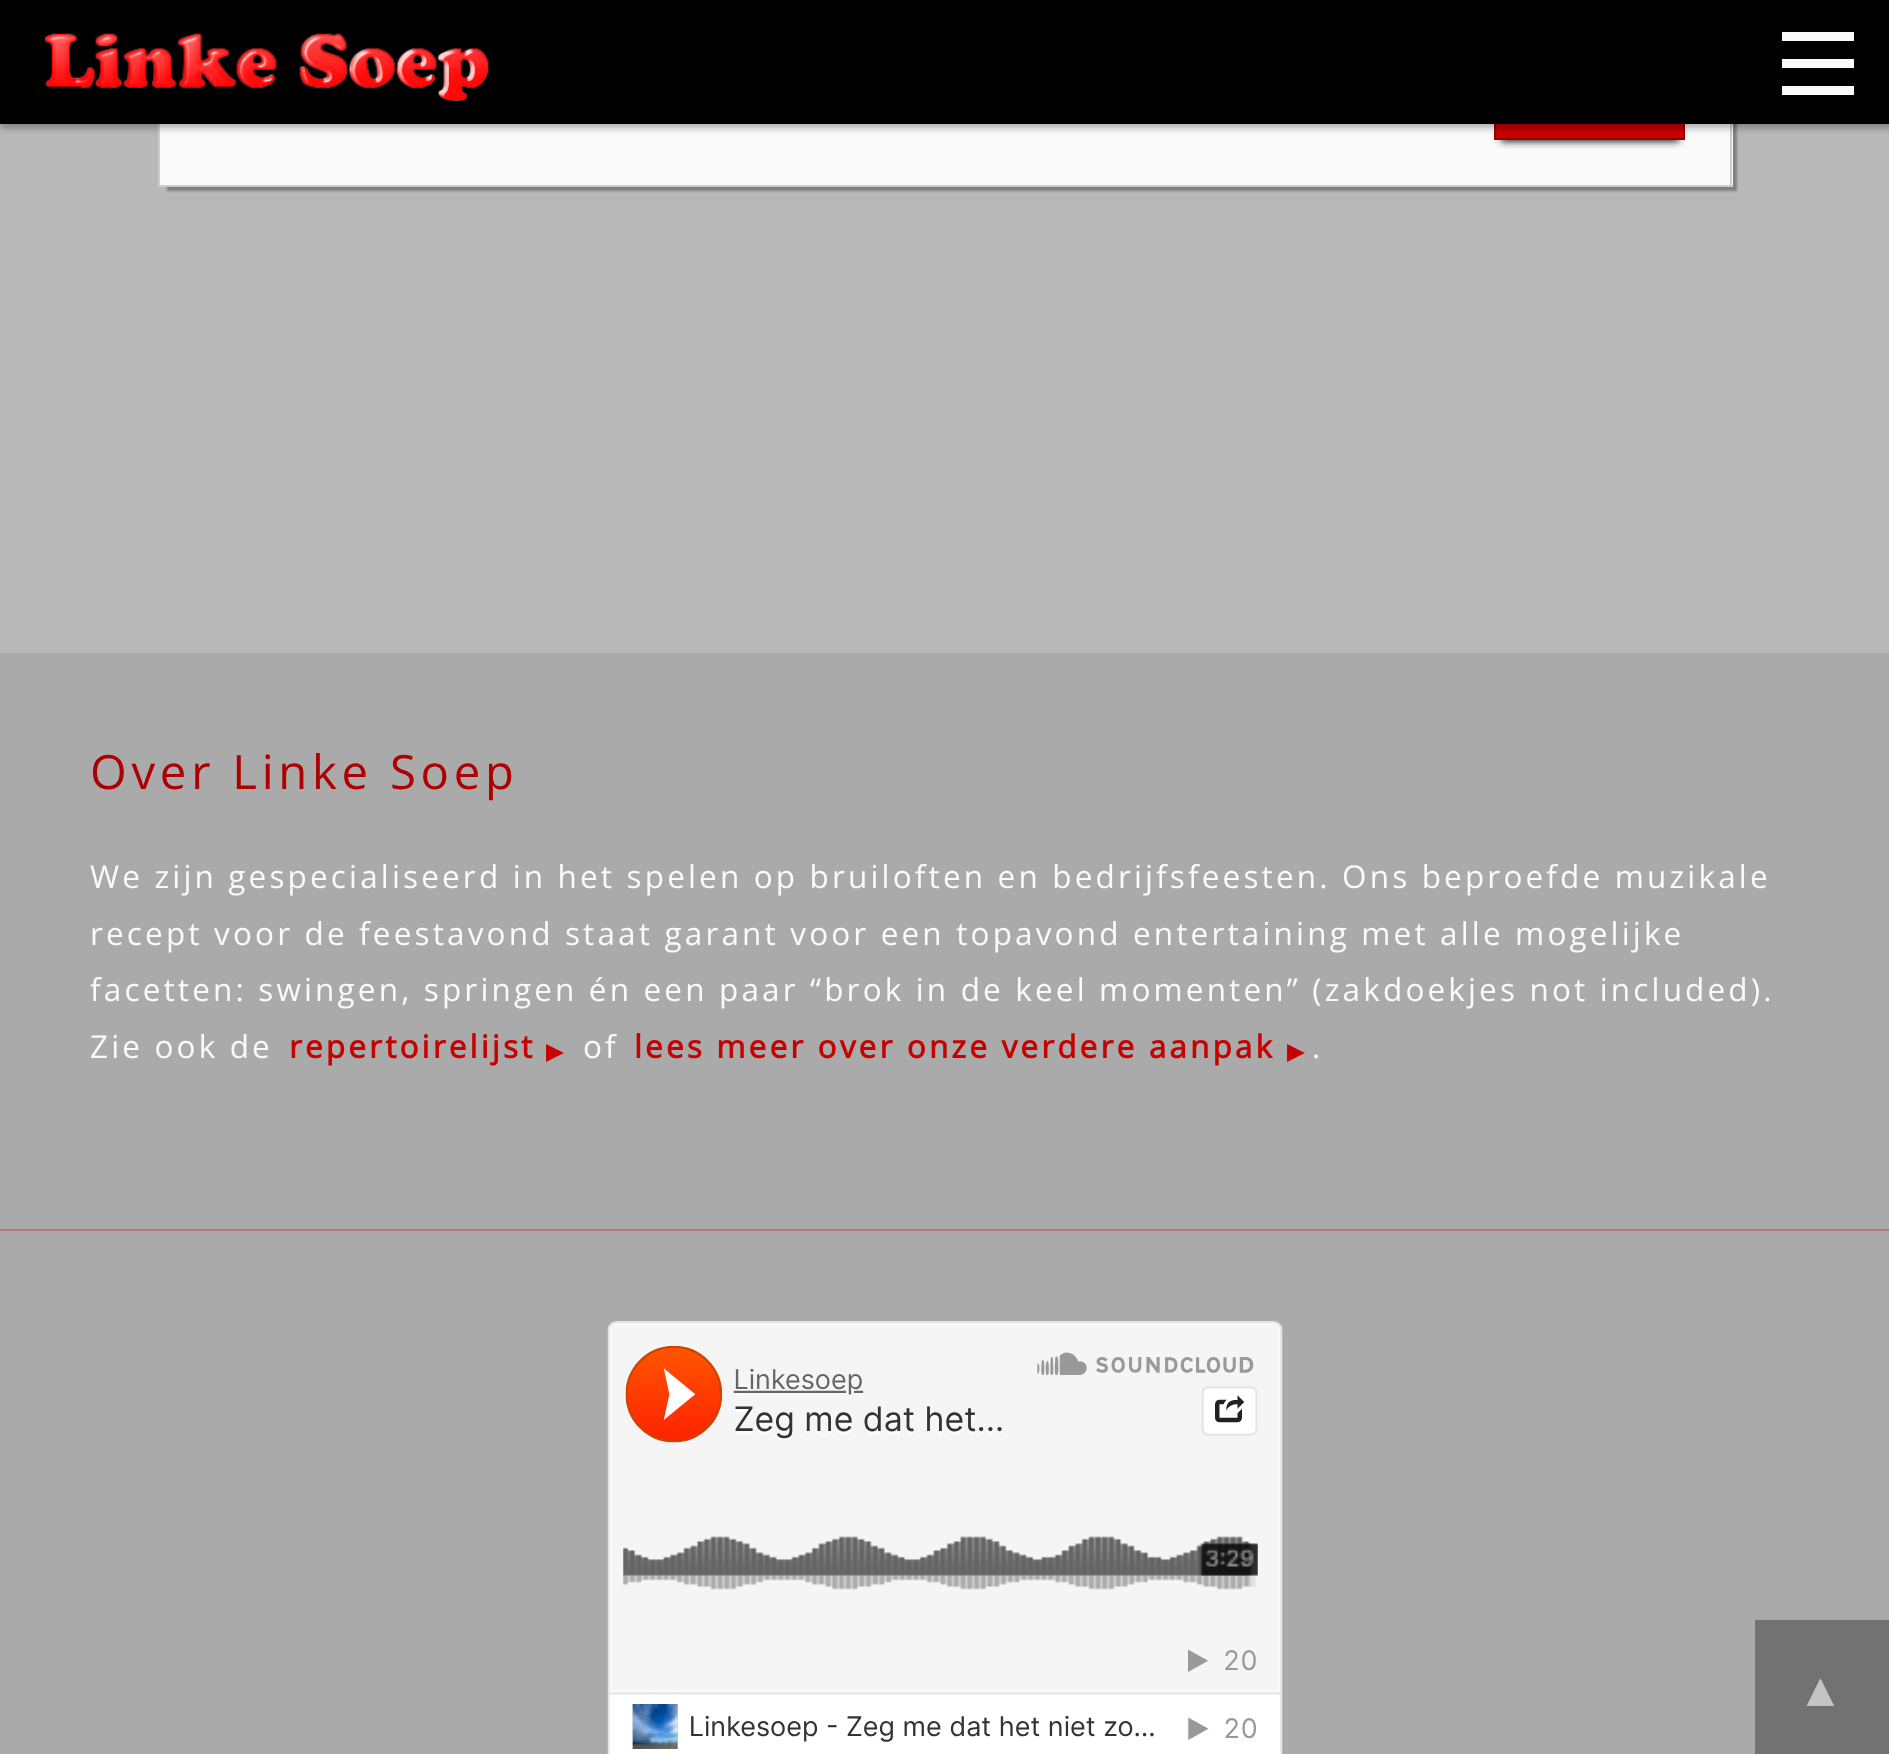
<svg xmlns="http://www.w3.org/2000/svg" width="1889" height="1754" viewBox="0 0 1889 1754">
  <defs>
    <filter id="blur1" x="-50%" y="-200%" width="200%" height="500%"><feGaussianBlur stdDeviation="1"/></filter>
    <filter id="blur2" x="-50%" y="-200%" width="200%" height="500%"><feGaussianBlur stdDeviation="3.5"/></filter>
  </defs>
  <rect width="100%" height="100%" fill="#b8b8b8"/>
  <rect x="167" y="-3" width="1570" height="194" fill="#000000" fill-opacity="0.3" filter="url(#blur1)"/>
  <rect x="160" y="124" width="1573" height="61" fill="#fafafa"/>
  <rect x="1730" y="124" width="2" height="63" fill="#cccccc"/>
  <rect x="158" y="185" width="1575" height="2" fill="#cccccc"/>
  <rect x="158" y="124" width="2" height="63" fill="#cccccc"/>
  <rect x="1501" y="65" width="178" height="77" fill="#333333" filter="url(#blur2)"/>
  <rect x="1496" y="124" width="187" height="14" fill="#c70000"/>
  <rect x="1495" y="51" width="189" height="88" fill="none" stroke="#940000" stroke-width="2"/>
  <rect x="0" y="0" width="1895" height="128" fill="#000000" fill-opacity="0.3" filter="url(#blur2)"/>
  <rect x="0" y="0" width="1889" height="124" fill="#000000"/>
  <image x="45" y="33" width="444" height="69" href="img1.png"/>
  <rect x="1782" y="32" width="72" height="9" fill="#fafafa"/>
  <rect x="1782" y="59" width="72" height="9" fill="#fafafa"/>
  <rect x="1782" y="86" width="72" height="9" fill="#fafafa"/>
  <rect x="0" y="653" width="1889" height="1101" fill="#aaaaaa"/>
  <rect x="0" y="1229" width="1889" height="2" fill="#b37777"/>
  <text x="90" y="789" font-family="Open Sans" font-size="47.25" letter-spacing="4.75" fill="#ae0000">Over Linke Soep</text>
  <text x="90" y="888" font-family="Open Sans" font-size="31.5" letter-spacing="3.15" fill="#fafafa">We zijn gespecialiseerd in het spelen op bruiloften en bedrijfsfeesten. Ons beproefde muzikale</text>
  <text x="90" y="945" font-family="Open Sans" font-size="31.5" letter-spacing="3.15" fill="#fafafa">recept voor de feestavond staat garant voor een topavond entertaining met alle mogelijke</text>
  <text x="90" y="1001" font-family="Open Sans" font-size="31.5" letter-spacing="3.15" fill="#fafafa">facetten: swingen, springen én een paar “brok in de keel momenten” (zakdoekjes not included).</text>
  <text x="90" y="1058" font-family="Open Sans" font-size="31.5" letter-spacing="3.15" fill="#fafafa">Zie ook de</text>
  <text x="289" y="1058" font-family="Open Sans" font-size="31.5" font-weight="bold" letter-spacing="3.15" fill="#c70000">repertoirelijst</text>
  <text x="546" y="1059" font-family="DejaVu Sans" font-size="22" font-weight="bold" letter-spacing="3.15" fill="#c70000">▶</text>
  <text x="583" y="1058" font-family="Open Sans" font-size="31.5" letter-spacing="3.15" fill="#fafafa">of</text>
  <text x="634" y="1058" font-family="Open Sans" font-size="31.5" font-weight="bold" letter-spacing="3.15" fill="#c70000">lees meer over onze verdere aanpak</text>
  <text x="1287" y="1059" font-family="DejaVu Sans" font-size="22" font-weight="bold" letter-spacing="3.15" fill="#c70000">▶</text>
  <text x="1312" y="1058" font-family="Open Sans" font-size="31.5" letter-spacing="3.15" fill="#fafafa">.</text>
  <image x="607" y="1321" width="676" height="433" href="img2.png"/>
  <rect x="1755" y="1620" width="134" height="134" fill="#727272"/>
  <text x="1797" y="1706" font-family="Liberation Sans" font-size="47.25" letter-spacing="4.75" fill="#c4c4c4">▲</text>
</svg>
